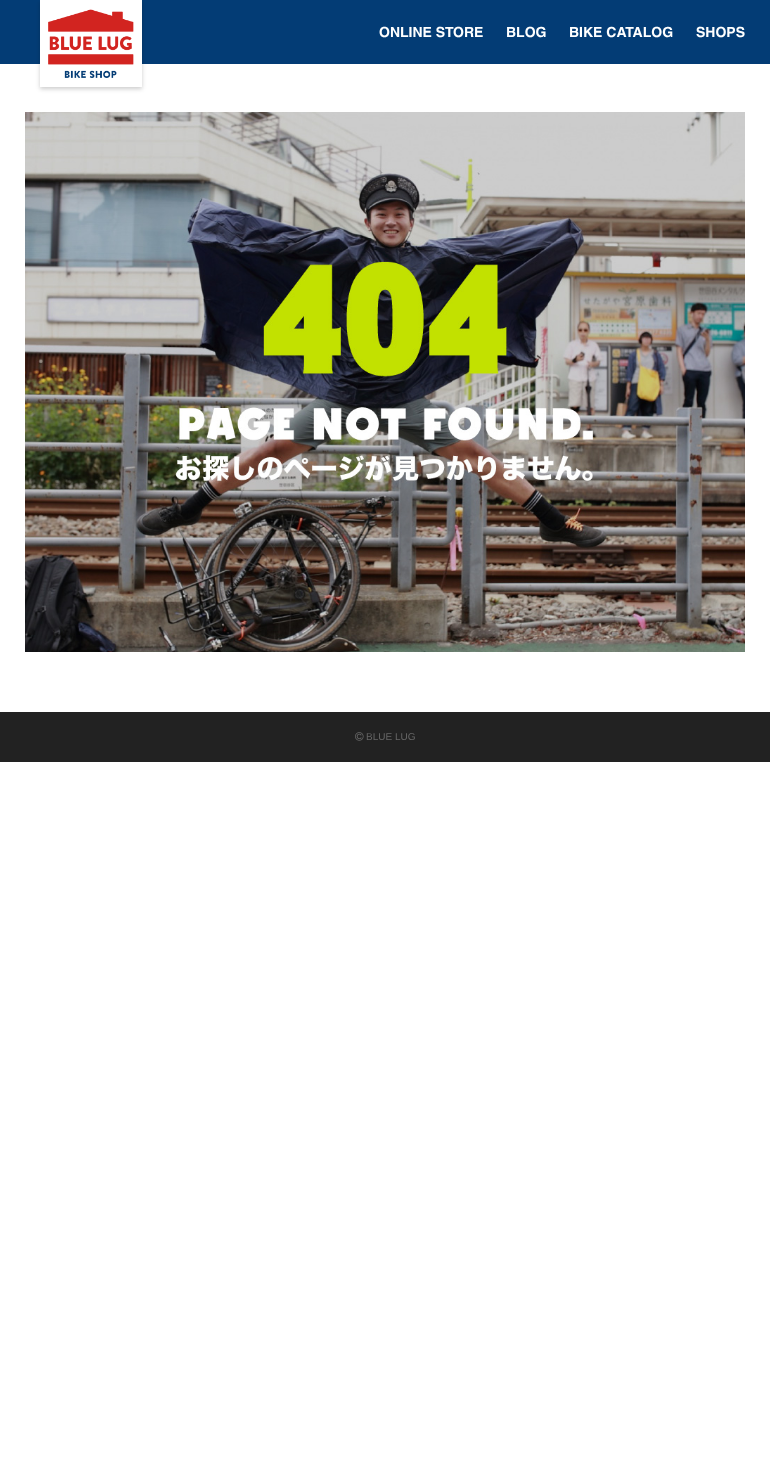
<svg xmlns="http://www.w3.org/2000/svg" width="770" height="1478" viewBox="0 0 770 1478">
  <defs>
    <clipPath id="clip1"><path d="M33 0H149V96H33ZM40 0H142V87H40Z" clip-rule="evenodd"/></clipPath>
    <filter id="blur1" x="-50%" y="-200%" width="200%" height="500%"><feGaussianBlur stdDeviation="2"/></filter>
  </defs>
  <rect width="100%" height="100%" fill="#ffffff"/>
  <rect x="0" y="0" width="770" height="64" fill="#033c75"/>
  <g clip-path="url(#clip1)">
    <rect x="40" y="2" width="102" height="87" fill="#000000" fill-opacity="0.2" filter="url(#blur1)"/>
  </g>
  <image x="40" y="0" width="102" height="78" href="img1.png"/>
  <text x="379" y="37" font-family="Helvetica" font-size="14" font-weight="bold" fill="#ffffff">ONLINE STORE</text>
  <text x="506" y="37" font-family="Helvetica" font-size="14" font-weight="bold" fill="#ffffff">BLOG</text>
  <text x="569" y="37" font-family="Helvetica" font-size="14" font-weight="bold" fill="#ffffff">BIKE CATALOG</text>
  <text x="696" y="37" font-family="Helvetica" font-size="14" font-weight="bold" fill="#ffffff">SHOPS</text>
  <image x="25" y="112" width="720" height="540" href="img2.png"/>
  <rect x="0" y="712" width="770" height="50" fill="#222222"/>
  <image x="355" y="732" width="9" height="9" href="img3.png"/>
  <text x="366" y="740" font-family="Liberation Sans" font-size="10" fill="#666666">BLUE LUG</text>
</svg>
